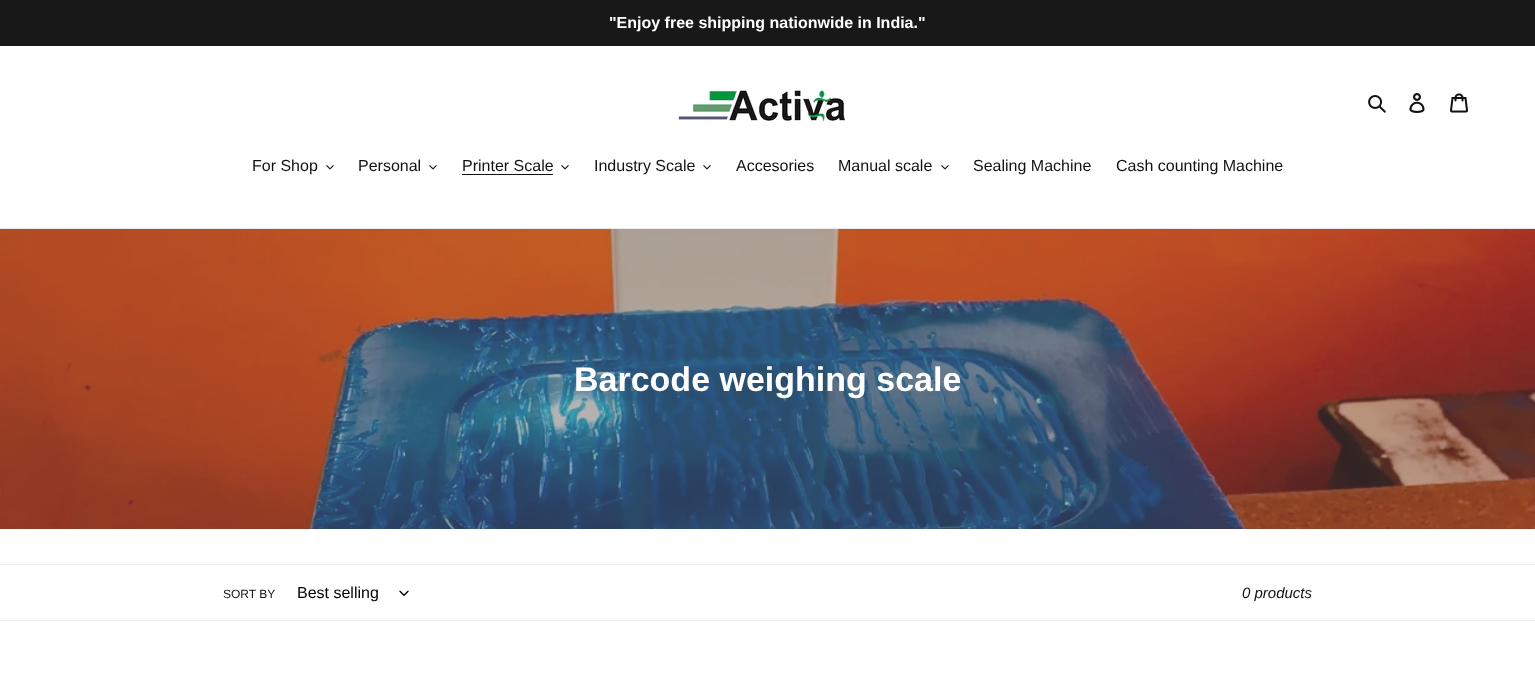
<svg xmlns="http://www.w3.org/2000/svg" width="1535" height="687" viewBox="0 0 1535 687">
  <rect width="100%" height="100%" fill="#ffffff"/>
  <rect x="0" y="0" width="1535" height="46" fill="#191818"/>
  <text x="609" y="28" font-family="Liberation Sans" font-size="16" font-weight="bold" fill="#ffffff">"Enjoy free shipping nationwide in India."</text>
  <image x="677" y="84" width="168" height="40" href="img1.png"/>
  <image x="1368" y="95" width="18" height="18" href="img2.png"/>
  <image x="1409" y="93" width="16" height="20" href="img3.png"/>
  <image x="1450" y="93" width="18" height="20" href="img4.png"/>
  <rect x="0" y="228" width="1535" height="1" fill="#ebebeb"/>
  <text x="252" y="171" font-family="Liberation Sans" font-size="16" fill="#131111">For Shop</text>
  <image x="326" y="165" width="8" height="5" href="img5.png"/>
  <text x="358" y="171" font-family="Liberation Sans" font-size="16" fill="#131111">Personal</text>
  <image x="429" y="165" width="8" height="5" href="img5.png"/>
  <text x="462" y="171" font-family="Liberation Sans" font-size="16" fill="#131111">Printer Scale</text>
  <rect x="462" y="174" width="91" height="1" fill="#131111"/>
  <image x="561" y="165" width="8" height="5" href="img5.png"/>
  <text x="594" y="171" font-family="Liberation Sans" font-size="16" fill="#131111">Industry Scale</text>
  <image x="703" y="165" width="8" height="5" href="img5.png"/>
  <text x="736" y="171" font-family="Liberation Sans" font-size="16" fill="#131111">Accesories</text>
  <text x="838" y="171" font-family="Liberation Sans" font-size="16" fill="#131111">Manual scale</text>
  <image x="941" y="165" width="8" height="5" href="img5.png"/>
  <text x="973" y="171" font-family="Liberation Sans" font-size="16" fill="#131111">Sealing Machine</text>
  <text x="1116" y="171" font-family="Liberation Sans" font-size="16" fill="#131111">Cash counting Machine</text>
  <image x="0" y="229" width="1535" height="300" href="img6.png"/>
  <text x="574" y="391" font-family="Liberation Sans" font-size="34" font-weight="bold" fill="#ffffff">Barcode weighing scale</text>
  <rect x="0" y="564" width="1535" height="1" fill="#ebebeb"/>
  <rect x="0" y="620" width="1535" height="1" fill="#ebebeb"/>
  <text x="223" y="598" font-family="Liberation Sans" font-size="12" fill="#131111">SORT BY</text>
  <text x="297" y="598" font-family="Liberation Sans" font-size="16" fill="#000000">Best selling</text>
  <image x="399" y="590" width="10" height="6" href="img7.png"/>
  <text x="1242" y="598" font-family="Liberation Sans" font-size="15" font-style="italic" fill="#131111">0 products</text>
</svg>
